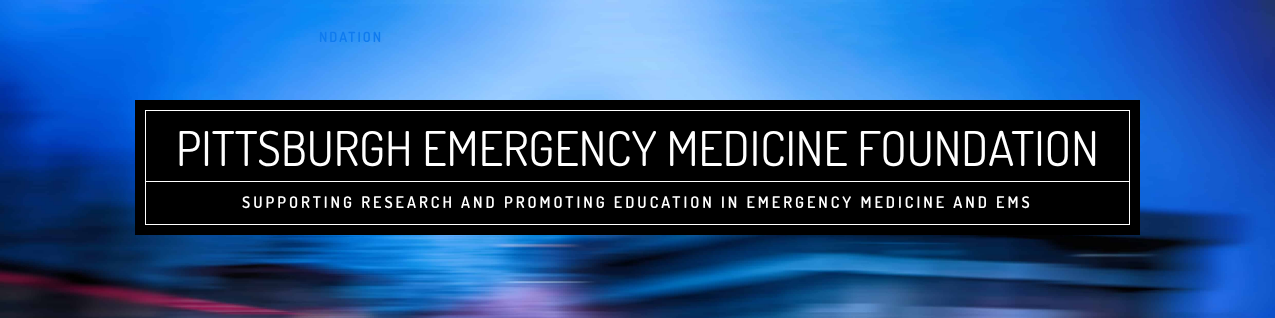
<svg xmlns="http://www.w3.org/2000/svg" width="1275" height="318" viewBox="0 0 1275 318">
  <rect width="100%" height="100%" fill="#ffffff"/>
  <image x="0" y="0" width="1275" height="318" href="img1.png"/>
  <text x="319" y="42" font-family="Dosis" font-size="14" font-weight="600" letter-spacing="2" fill="#0f7bef">NDATION</text>
  <rect x="140" y="105" width="995" height="125" fill="none" stroke="#000000" stroke-width="10"/>
  <rect x="145.5" y="110.5" width="984" height="114" fill="#000000" stroke="#ffffff"/>
  <rect x="146" y="181" width="983" height="1" fill="#ffffff"/>
  <text x="176" y="166" font-family="Dosis" font-size="48" fill="#ffffff">PITTSBURGH EMERGENCY MEDICINE FOUNDATION</text>
  <text x="242" y="208" font-family="Dosis" font-size="16" font-weight="600" letter-spacing="3" fill="#ffffff">SUPPORTING RESEARCH AND PROMOTING EDUCATION IN EMERGENCY MEDICINE AND EMS</text>
</svg>
